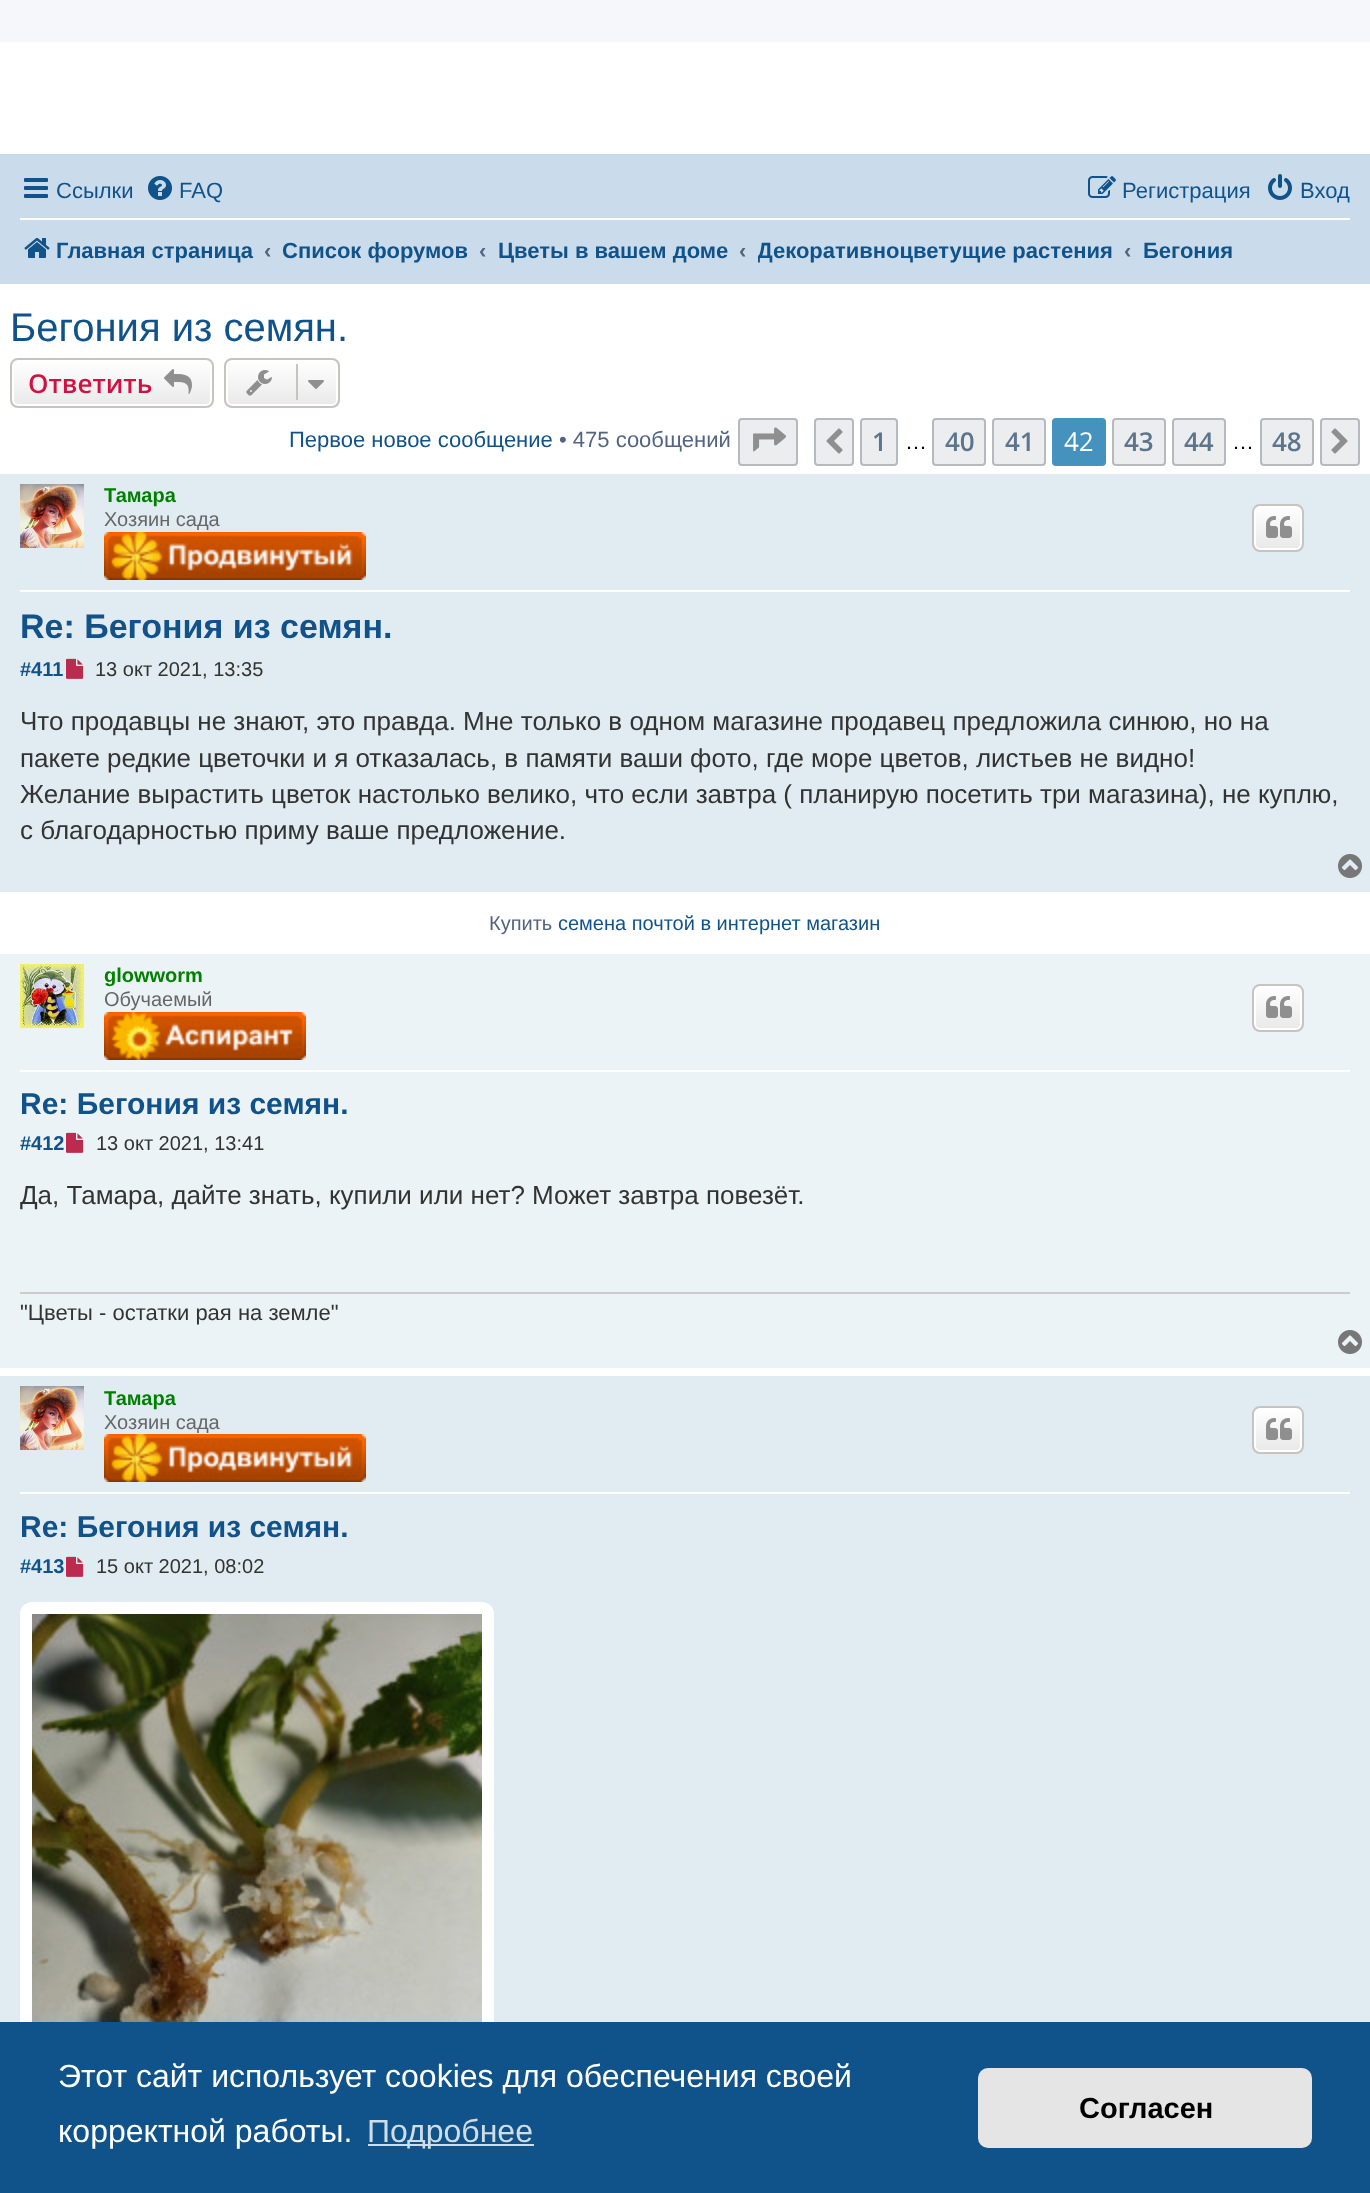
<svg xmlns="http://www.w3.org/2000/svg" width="1370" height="2193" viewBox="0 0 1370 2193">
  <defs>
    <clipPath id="clip1"><rect x="758" y="226" width="356" height="48"/></clipPath>
    <clipPath id="clip2"><rect x="10" y="358" width="204" height="50" rx="8"/></clipPath>
    <linearGradient id="g1" gradientUnits="userSpaceOnUse" x1="112" y1="360" x2="112" y2="406"><stop offset="0" stop-color="#ffffff"/><stop offset="1" stop-color="#e9e9e9"/></linearGradient>
    <clipPath id="clip3"><rect x="224" y="358" width="116" height="50" rx="8"/></clipPath>
    <linearGradient id="g2" gradientUnits="userSpaceOnUse" x1="282" y1="360" x2="282" y2="406"><stop offset="0" stop-color="#ffffff"/><stop offset="1" stop-color="#e9e9e9"/></linearGradient>
    <clipPath id="clip4"><rect x="1252" y="504" width="52" height="48" rx="8"/></clipPath>
    <linearGradient id="g3" gradientUnits="userSpaceOnUse" x1="1278" y1="506" x2="1278" y2="550"><stop offset="0" stop-color="#ffffff"/><stop offset="1" stop-color="#e9e9e9"/></linearGradient>
    <clipPath id="clip5"><rect x="1252" y="984" width="52" height="48" rx="8"/></clipPath>
    <linearGradient id="g4" gradientUnits="userSpaceOnUse" x1="1278" y1="986" x2="1278" y2="1030"><stop offset="0" stop-color="#ffffff"/><stop offset="1" stop-color="#e9e9e9"/></linearGradient>
    <clipPath id="clip6"><rect x="1252" y="1406" width="52" height="48" rx="8"/></clipPath>
    <linearGradient id="g5" gradientUnits="userSpaceOnUse" x1="1278" y1="1408" x2="1278" y2="1452"><stop offset="0" stop-color="#ffffff"/><stop offset="1" stop-color="#e9e9e9"/></linearGradient>
  </defs>
  <rect width="100%" height="100%" fill="#f5f7fa"/>
  <rect x="0" y="42" width="1370" height="1334" fill="#ffffff"/>
  <rect x="0" y="154" width="1370" height="130" fill="#cadceb"/>
  <image x="24" y="178" width="24" height="20" href="img1.png"/>
  <text x="56" y="198" font-family="Liberation Sans" font-size="22" fill="#105289">Ссылки</text>
  <image x="148" y="176" width="24" height="24" href="img2.png"/>
  <text x="179" y="198" font-family="Liberation Sans" font-size="22" fill="#105289">FAQ</text>
  <image x="1088" y="176" width="28" height="22" href="img3.png"/>
  <text x="1122" y="198" font-family="Liberation Sans" font-size="22" fill="#105289">Регистрация</text>
  <image x="1268" y="174" width="24" height="26" href="img4.png"/>
  <text x="1300" y="198" font-family="Liberation Sans" font-size="22" fill="#105289">Вход</text>
  <rect x="20" y="218" width="1330" height="2" fill="#ffffff"/>
  <image x="24" y="238" width="26" height="20" href="img5.png"/>
  <text x="56" y="258" font-family="Liberation Sans" font-size="22" font-weight="bold" fill="#105289">Главная страница</text>
  <text x="264" y="258" font-family="Liberation Sans" font-size="22" font-weight="bold" fill="#536482">‹</text>
  <text x="282" y="258" font-family="Liberation Sans" font-size="22" font-weight="bold" fill="#105289">Список форумов</text>
  <text x="479" y="258" font-family="Liberation Sans" font-size="22" font-weight="bold" fill="#536482">‹</text>
  <text x="498" y="258" font-family="Liberation Sans" font-size="22" font-weight="bold" fill="#105289">Цветы в вашем доме</text>
  <text x="739" y="258" font-family="Liberation Sans" font-size="22" font-weight="bold" fill="#536482">‹</text>
  <g clip-path="url(#clip1)">
    <text x="757" y="258" font-family="Liberation Sans" font-size="22" font-weight="bold" fill="#105289">Декоративноцветущие растения</text>
  </g>
  <text x="1124" y="258" font-family="Liberation Sans" font-size="22" font-weight="bold" fill="#536482">‹</text>
  <text x="1143" y="258" font-family="Liberation Sans" font-size="22" font-weight="bold" fill="#105289">Бегония</text>
  <text x="10" y="341" font-family="Liberation Sans" font-size="40" fill="#105289">Бегония из семян.</text>
  <g clip-path="url(#clip2)">
    <rect x="10" y="360" width="204" height="46" fill="url(#g1)"/>
  </g>
  <rect x="13" y="361" width="198" height="44" rx="5" fill="none" stroke="#ffffff" stroke-width="2"/>
  <rect x="11" y="359" width="202" height="48" rx="7" fill="none" stroke="#c7c3bf" stroke-width="2"/>
  <text x="28" y="393" font-family="Open Sans" font-size="26" font-weight="600" fill="#d31141">Ответить</text>
  <image x="164" y="369" width="28" height="25" href="img6.png"/>
  <g clip-path="url(#clip3)">
    <rect x="224" y="360" width="116" height="46" fill="url(#g2)"/>
  </g>
  <rect x="227" y="361" width="110" height="44" rx="5" fill="none" stroke="#ffffff" stroke-width="2"/>
  <rect x="225" y="359" width="114" height="48" rx="7" fill="none" stroke="#c7c3bf" stroke-width="2"/>
  <image x="246" y="370" width="26" height="26" href="img7.png"/>
  <rect x="296" y="364" width="2" height="36" fill="#c7c3bf"/>
  <image x="308" y="380" width="16" height="9" href="img8.png"/>
  <text x="289" y="447" font-family="Liberation Sans" font-size="22" fill="#105289">Первое новое сообщение</text>
  <text x="559" y="447" font-family="Liberation Sans" font-size="22" fill="#536482">• 475 сообщений</text>
  <rect x="739" y="419" width="58" height="46" rx="3" fill="#ecedee" stroke="#b4bac0" stroke-width="2"/>
  <image x="753" y="427" width="33" height="25" href="img9.png"/>
  <rect x="815" y="419" width="38" height="46" rx="3" fill="#ecedee" stroke="#b4bac0" stroke-width="2"/>
  <image x="826" y="428" width="17" height="26" href="img10.png"/>
  <rect x="861" y="419" width="36" height="46" rx="3" fill="#ecedee" stroke="#b4bac0" stroke-width="2"/>
  <text x="872" y="451" font-family="Open Sans" font-size="26" font-weight="600" fill="#5c758c">1</text>
  <text x="905" y="449" font-family="Liberation Sans" font-size="22" fill="#000000">…</text>
  <rect x="933" y="419" width="52" height="46" rx="3" fill="#ecedee" stroke="#b4bac0" stroke-width="2"/>
  <text x="945" y="451" font-family="Open Sans" font-size="26" font-weight="600" fill="#5c758c">40</text>
  <rect x="993" y="419" width="52" height="46" rx="3" fill="#ecedee" stroke="#b4bac0" stroke-width="2"/>
  <text x="1005" y="451" font-family="Open Sans" font-size="26" font-weight="600" fill="#5c758c">41</text>
  <rect x="1053" y="419" width="52" height="46" rx="3" fill="#4692bf" stroke="#4692bf" stroke-width="2"/>
  <text x="1064" y="451" font-family="Open Sans" font-size="26" fill="#ffffff">42</text>
  <rect x="1113" y="419" width="52" height="46" rx="3" fill="#ecedee" stroke="#b4bac0" stroke-width="2"/>
  <text x="1124" y="451" font-family="Open Sans" font-size="26" font-weight="600" fill="#5c758c">43</text>
  <rect x="1173" y="419" width="52" height="46" rx="3" fill="#ecedee" stroke="#b4bac0" stroke-width="2"/>
  <text x="1184" y="451" font-family="Open Sans" font-size="26" font-weight="600" fill="#5c758c">44</text>
  <text x="1232" y="449" font-family="Liberation Sans" font-size="22" fill="#000000">…</text>
  <rect x="1261" y="419" width="52" height="46" rx="3" fill="#ecedee" stroke="#b4bac0" stroke-width="2"/>
  <text x="1272" y="451" font-family="Open Sans" font-size="26" font-weight="600" fill="#5c758c">48</text>
  <rect x="1321" y="419" width="38" height="46" rx="3" fill="#ecedee" stroke="#b4bac0" stroke-width="2"/>
  <image x="1331" y="428" width="17" height="26" href="img11.png"/>
  <rect x="0" y="474" width="1370" height="418" fill="#e1ebf2"/>
  <rect x="20" y="590" width="1330" height="2" fill="#ffffff"/>
  <image x="20" y="484" width="64" height="64" href="img12.png"/>
  <text x="104" y="502" font-family="Liberation Sans" font-size="20" font-weight="bold" fill="#008000">Тамара</text>
  <text x="104" y="526" font-family="Liberation Sans" font-size="20" fill="#666666">Хозяин сада</text>
  <image x="104" y="532" width="262" height="48" href="img13.png"/>
  <g clip-path="url(#clip4)">
    <rect x="1252" y="506" width="52" height="44" fill="url(#g3)"/>
  </g>
  <rect x="1255" y="507" width="46" height="42" rx="5" fill="none" stroke="#ffffff" stroke-width="2"/>
  <rect x="1253" y="505" width="50" height="46" rx="7" fill="none" stroke="#c7c3bf" stroke-width="2"/>
  <image x="1266" y="516" width="26" height="22" href="img14.png"/>
  <text x="20" y="638" font-family="Liberation Sans" font-size="34" font-weight="bold" fill="#105289">Re: Бегония из семян.</text>
  <text x="20" y="676" font-family="Liberation Sans" font-size="20" font-weight="bold" fill="#105289">#411</text>
  <image x="66" y="658" width="18" height="21" href="img15.png"/>
  <text x="95" y="676" font-family="Liberation Sans" font-size="20" fill="#333333">13 окт 2021, 13:35</text>
  <text x="20" y="730" font-family="Liberation Sans" font-size="26" fill="#333333">Что продавцы не знают, это правда. Мне только в одном магазине продавец предложила синюю, но на</text>
  <text x="20" y="767" font-family="Liberation Sans" font-size="26" fill="#333333">пакете редкие цветочки и я отказалась, в памяти ваши фото, где море цветов, листьев не видно!</text>
  <text x="20" y="803" font-family="Liberation Sans" font-size="26" fill="#333333">Желание вырастить цветок настолько велико, что если завтра ( планирую посетить три магазина), не куплю,</text>
  <text x="20" y="839" font-family="Liberation Sans" font-size="26" fill="#333333">с благодарностью приму ваше предложение.</text>
  <image x="1338" y="854" width="24" height="24" href="img16.png"/>
  <text x="489" y="930" font-family="Liberation Sans" font-size="20" fill="#536482">Купить</text>
  <text x="558" y="930" font-family="Liberation Sans" font-size="20" fill="#105289">семена почтой в интернет магазин</text>
  <rect x="0" y="954" width="1370" height="414" fill="#ecf3f7"/>
  <rect x="20" y="1070" width="1330" height="2" fill="#ffffff"/>
  <image x="20" y="964" width="64" height="64" href="img17.png"/>
  <text x="104" y="982" font-family="Liberation Sans" font-size="20" font-weight="bold" fill="#008000">glowworm</text>
  <text x="104" y="1006" font-family="Liberation Sans" font-size="20" fill="#666666">Обучаемый</text>
  <image x="104" y="1012" width="202" height="48" href="img18.png"/>
  <g clip-path="url(#clip5)">
    <rect x="1252" y="986" width="52" height="44" fill="url(#g4)"/>
  </g>
  <rect x="1255" y="987" width="46" height="42" rx="5" fill="none" stroke="#ffffff" stroke-width="2"/>
  <rect x="1253" y="985" width="50" height="46" rx="7" fill="none" stroke="#c7c3bf" stroke-width="2"/>
  <image x="1266" y="996" width="26" height="22" href="img14.png"/>
  <text x="20" y="1114" font-family="Liberation Sans" font-size="30" font-weight="bold" fill="#105289">Re: Бегония из семян.</text>
  <text x="20" y="1150" font-family="Liberation Sans" font-size="20" font-weight="bold" fill="#105289">#412</text>
  <image x="66" y="1132" width="18" height="21" href="img19.png"/>
  <text x="96" y="1150" font-family="Liberation Sans" font-size="20" fill="#333333">13 окт 2021, 13:41</text>
  <text x="20" y="1204" font-family="Liberation Sans" font-size="26" fill="#333333">Да, Тамара, дайте знать, купили или нет? Может завтра повезёт.</text>
  <rect x="20" y="1292" width="1330" height="2" fill="#cccccc"/>
  <text x="20" y="1320" font-family="Liberation Sans" font-size="22" fill="#333333">"Цветы - остатки рая на земле"</text>
  <image x="1338" y="1330" width="24" height="24" href="img20.png"/>
  <rect x="0" y="1376" width="1370" height="646" fill="#e1ebf2"/>
  <rect x="20" y="1492" width="1330" height="2" fill="#ffffff"/>
  <image x="20" y="1386" width="64" height="64" href="img21.png"/>
  <text x="104" y="1405" font-family="Liberation Sans" font-size="20" font-weight="bold" fill="#008000">Тамара</text>
  <text x="104" y="1429" font-family="Liberation Sans" font-size="20" fill="#666666">Хозяин сада</text>
  <image x="104" y="1434" width="262" height="48" href="img13.png"/>
  <g clip-path="url(#clip6)">
    <rect x="1252" y="1408" width="52" height="44" fill="url(#g5)"/>
  </g>
  <rect x="1255" y="1409" width="46" height="42" rx="5" fill="none" stroke="#ffffff" stroke-width="2"/>
  <rect x="1253" y="1407" width="50" height="46" rx="7" fill="none" stroke="#c7c3bf" stroke-width="2"/>
  <image x="1266" y="1418" width="26" height="22" href="img14.png"/>
  <text x="20" y="1537" font-family="Liberation Sans" font-size="30" font-weight="bold" fill="#105289">Re: Бегония из семян.</text>
  <text x="20" y="1573" font-family="Liberation Sans" font-size="20" font-weight="bold" fill="#105289">#413</text>
  <image x="66" y="1556" width="18" height="21" href="img15.png"/>
  <text x="96" y="1573" font-family="Liberation Sans" font-size="20" fill="#333333">15 окт 2021, 08:02</text>
  <rect x="20" y="1602" width="474" height="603" rx="12" fill="#ffffff"/>
  <image x="32" y="1614" width="450" height="408" href="img22.png"/>
  <rect x="0" y="2022" width="1370" height="171" fill="#0f538a"/>
  <text x="58" y="2087" font-family="Liberation Sans" font-size="32" fill="#ffffff">Этот сайт использует cookies для обеспечения своей</text>
  <text x="58" y="2142" font-family="Liberation Sans" font-size="32" fill="#ffffff">корректной работы.</text>
  <rect x="368" y="2144" width="166" height="2" fill="#cfdde8"/>
  <text x="367" y="2142" font-family="Liberation Sans" font-size="32" fill="#cfdde8">Подробнее</text>
  <rect x="978" y="2068" width="334" height="80" rx="10" fill="#e5e5e5"/>
  <text x="1079" y="2118" font-family="Liberation Sans" font-size="29" font-weight="bold" fill="#000000">Согласен</text>
</svg>
